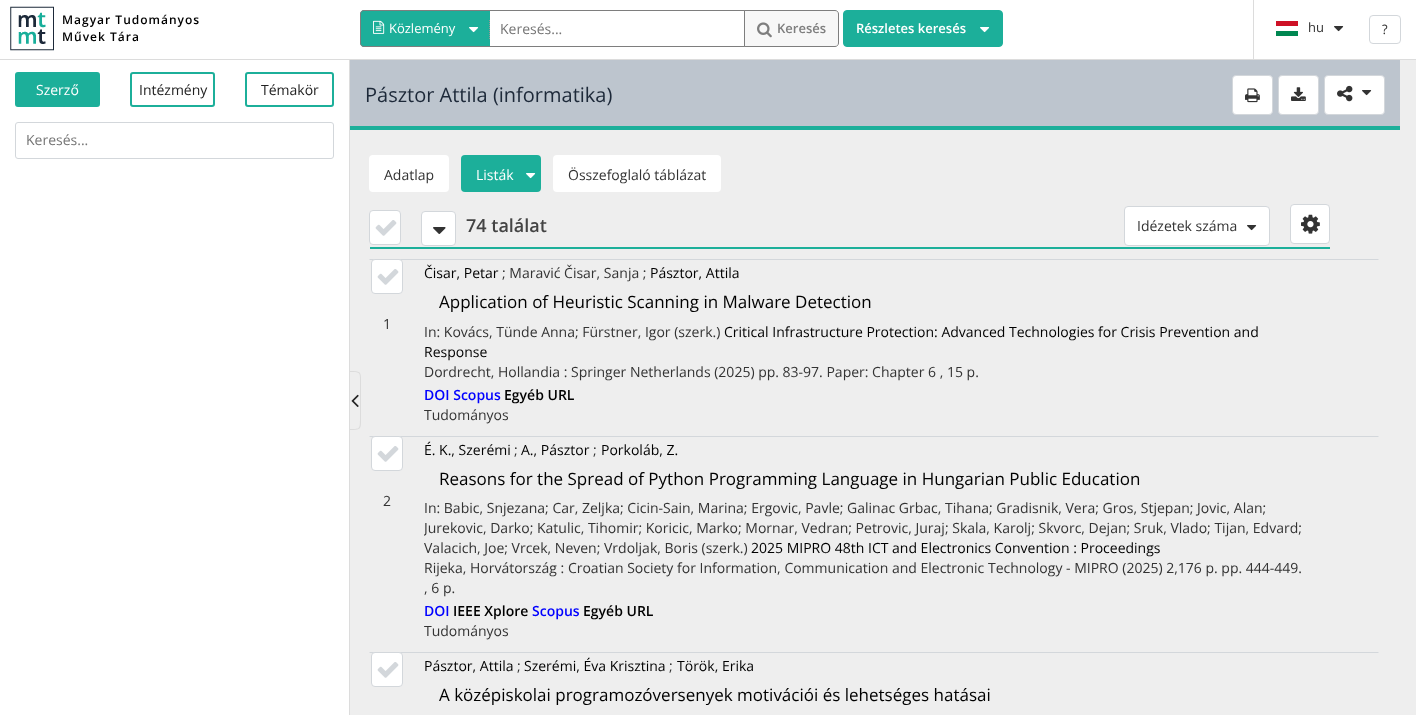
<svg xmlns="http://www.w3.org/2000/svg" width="1416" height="715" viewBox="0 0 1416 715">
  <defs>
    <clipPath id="clip1"><rect x="424" y="437" width="882" height="204"/></clipPath>
  </defs>
  <rect width="100%" height="100%" fill="#eeeeee"/>
  <rect x="349" y="57" width="1" height="658" fill="#dcdcdc"/>
  <rect x="0" y="0" width="1416" height="59" fill="#ffffff"/>
  <rect x="0" y="59" width="1416" height="1" fill="#dcdcdc"/>
  <image x="10" y="6" width="44" height="45" href="img1.png"/>
  <text x="62" y="24" font-family="Open Sans" font-size="12" font-weight="600" letter-spacing="1" fill="#000000">Magyar Tudományos</text>
  <text x="62" y="41" font-family="Open Sans" font-size="12" font-weight="600" letter-spacing="1" fill="#000000">Művek Tára</text>
  <path d="M364 10H490V47H364C362 47 360 45 360 43V14C360 12 362 10 364 10Z" fill="#1caf9a"/>
  <path d="M364 10H490V47H364C362 47 360 45 360 43V14C360 12 362 10 364 10ZM364 11H490V46H364C362 46 361 45 361 43V14C361 12 362 11 364 11Z" fill="#7e7e7e" fill-rule="evenodd"/>
  <image x="373" y="20" width="12" height="14" href="img2.png"/>
  <text x="389" y="33" font-family="Open Sans" font-size="13" fill="#ffffff">Közlemény</text>
  <path d="M489.5 20V39" fill="none" stroke="#969696" stroke-dasharray="1 1"/>
  <image x="469" y="27" width="10" height="6" href="img3.png"/>
  <rect x="490" y="10" width="255" height="1" fill="#7e7e7e"/>
  <rect x="490" y="46" width="255" height="1" fill="#7e7e7e"/>
  <text x="500" y="34" font-family="Open Sans" font-size="14" fill="#757575">Keresés...</text>
  <path d="M744.5 10.5H835C837 10.5 838.5 12 838.5 14V43C838.5 45 837 46.5 835 46.5H744.5Z" fill="#f7f7f7" stroke="#7e7e7e"/>
  <image x="757" y="22" width="15" height="16" href="img4.png"/>
  <text x="777" y="33" font-family="Open Sans" font-size="13" font-weight="600" fill="#7e7e7e">Keresés</text>
  <rect x="843.5" y="10.5" width="159" height="36" rx="3.5" fill="#1caf9a" stroke="#1caf9a"/>
  <text x="856" y="33" font-family="Open Sans" font-size="13" font-weight="600" fill="#ffffff">Részletes keresés</text>
  <image x="980" y="27" width="10" height="6" href="img3.png"/>
  <rect x="1253" y="0" width="1" height="59" fill="#dcdcdc"/>
  <image x="1276" y="21" width="22" height="15" href="img5.png"/>
  <text x="1308" y="32" font-family="Open Sans" font-size="13" fill="#333333">hu</text>
  <image x="1334" y="26" width="10" height="6" href="img6.png"/>
  <rect x="1369.5" y="15.5" width="31" height="28" rx="3.5" fill="none" stroke="#d3d7db"/>
  <text x="1382" y="34" font-family="Open Sans" font-size="13" fill="#333333">?</text>
  <path d="M350 371C362 371 361 372 361 384V417C361 429 362 430 350 430L349 429V372ZM350 372C361 372 360 372 360 384V417C360 430 360 429 349 429V372Z" fill="#dcdcdc" fill-rule="evenodd"/>
  <image x="351" y="394" width="8" height="13" href="img7.png"/>
  <rect x="0" y="60" width="349" height="655" fill="#ffffff"/>
  <rect x="16" y="73" width="83" height="33" rx="2" fill="#1caf9a" stroke="#1caf9a" stroke-width="2"/>
  <text x="36" y="95" font-family="Open Sans" font-size="14" fill="#ffffff">Szerző</text>
  <rect x="131" y="73" width="83" height="33" rx="2" fill="none" stroke="#1caf9a" stroke-width="2"/>
  <text x="139" y="95" font-family="Open Sans" font-size="14" fill="#222222">Intézmény</text>
  <rect x="246" y="73" width="87" height="33" rx="2" fill="none" stroke="#1caf9a" stroke-width="2"/>
  <text x="261" y="95" font-family="Open Sans" font-size="14" fill="#222222">Témakör</text>
  <rect x="15.5" y="122.5" width="318" height="36" rx="2.5" fill="none" stroke="#d3d7db"/>
  <text x="26" y="145" font-family="Open Sans" font-size="14" fill="#757575">Keresés...</text>
  <rect x="350" y="60" width="1050" height="66" fill="#bdc5ce"/>
  <text x="365" y="102" font-family="Open Sans" font-size="20" fill="#1d2939">Pásztor Attila (informatika)</text>
  <rect x="1232.5" y="75.5" width="40" height="39" rx="3.5" fill="#ffffff" stroke="#d3d7db"/>
  <image x="1245" y="88" width="15" height="15" href="img8.png"/>
  <rect x="1278.5" y="75.5" width="40" height="39" rx="3.5" fill="#ffffff" stroke="#d3d7db"/>
  <image x="1291" y="87" width="15" height="14" href="img9.png"/>
  <rect x="1324.5" y="75.5" width="60" height="39" rx="3.5" fill="#ffffff" stroke="#d3d7db"/>
  <image x="1337" y="85" width="16" height="17" href="img10.png"/>
  <image x="1362" y="90" width="10" height="6" href="img6.png"/>
  <rect x="350" y="126" width="1050" height="4" fill="#1caf9a"/>
  <rect x="369" y="155" width="80" height="37" rx="4" fill="#ffffff"/>
  <text x="384" y="180" font-family="Open Sans" font-size="14" fill="#333333">Adatlap</text>
  <rect x="461" y="155" width="80" height="37" rx="4" fill="#1caf9a"/>
  <text x="476" y="180" font-family="Open Sans" font-size="14" fill="#ffffff">Listák</text>
  <image x="526" y="173" width="10" height="6" href="img3.png"/>
  <rect x="553" y="155" width="168" height="37" rx="4" fill="#ffffff"/>
  <text x="568" y="180" font-family="Open Sans" font-size="14" fill="#333333">Összefoglaló táblázat</text>
  <rect x="370" y="247" width="960" height="2" fill="#1caf9a"/>
  <rect x="369.5" y="210.5" width="31" height="34" rx="3.5" fill="#ffffff" stroke="#d3d7db"/>
  <image x="375" y="220" width="22" height="16" href="img11.png"/>
  <rect x="421.5" y="211.5" width="34" height="34" rx="3.5" fill="#ffffff" stroke="#d3d7db"/>
  <image x="433" y="227" width="13" height="7" href="img12.png"/>
  <text x="466" y="232" font-family="Open Sans" font-size="18" font-weight="600" fill="#444444">74 találat</text>
  <rect x="1124.5" y="206.5" width="145" height="39" rx="3.5" fill="#ffffff" stroke="#d3d7db"/>
  <text x="1137" y="231" font-family="Open Sans" font-size="14" fill="#333333">Idézetek száma</text>
  <image x="1247" y="225" width="10" height="6" href="img6.png"/>
  <rect x="1290.5" y="204.5" width="39" height="39" rx="3.5" fill="#ffffff" stroke="#d3d7db"/>
  <image x="1301" y="214" width="19" height="20" href="img13.png"/>
  <path d="M369 259H1379L1378 260H370Z" fill="#d3d7db"/>
  <rect x="371.5" y="259.5" width="31" height="34" rx="3.5" fill="#ffffff" stroke="#d3d7db"/>
  <image x="377" y="269" width="22" height="16" href="img11.png"/>
  <text x="383" y="329" font-family="Open Sans" font-size="14" fill="#333333">1</text>
  <text x="424" y="278" font-family="Open Sans" font-size="14" fill="#000000">Čisar, Petar</text>
  <text x="502" y="278" font-family="Open Sans" font-size="14" fill="#333333">; Maravić Čisar, Sanja ;</text>
  <text x="650" y="278" font-family="Open Sans" font-size="14" fill="#000000">Pásztor, Attila</text>
  <text x="439" y="308" font-family="Open Sans" font-size="17" fill="#000000">Application of Heuristic Scanning in Malware Detection</text>
  <text x="424" y="337" font-family="Open Sans" font-size="14" fill="#333333">In: Kovács, Tünde Anna; Fürstner, Igor (szerk.)</text>
  <text x="724" y="337" font-family="Open Sans" font-size="14" fill="#000000">Critical Infrastructure Protection: Advanced Technologies for Crisis Prevention and</text>
  <text x="424" y="357" font-family="Open Sans" font-size="14" fill="#000000">Response</text>
  <text x="424" y="377" font-family="Open Sans" font-size="14" fill="#333333">Dordrecht, Hollandia : Springer Netherlands (2025) pp. 83-97. Paper: Chapter 6 , 15 p.</text>
  <text x="424" y="400" font-family="Open Sans" font-size="14" font-weight="600" fill="#0000ff">DOI Scopus</text>
  <text x="504" y="400" font-family="Open Sans" font-size="14" font-weight="600" fill="#000000">Egyéb URL</text>
  <text x="424" y="420" font-family="Open Sans" font-size="14" fill="#333333">Tudományos</text>
  <path d="M369 436H1379L1378 437H370Z" fill="#d3d7db"/>
  <rect x="371.5" y="436.5" width="31" height="34" rx="3.5" fill="#ffffff" stroke="#d3d7db"/>
  <image x="377" y="446" width="22" height="16" href="img11.png"/>
  <text x="383" y="506" font-family="Open Sans" font-size="14" fill="#333333">2</text>
  <text x="424" y="455" font-family="Open Sans" font-size="14" fill="#000000">É. K., Szerémi</text>
  <text x="514" y="455" font-family="Open Sans" font-size="14" fill="#333333">;</text>
  <text x="521" y="455" font-family="Open Sans" font-size="14" fill="#000000">A., Pásztor</text>
  <text x="593" y="455" font-family="Open Sans" font-size="14" fill="#333333">;</text>
  <text x="601" y="455" font-family="Open Sans" font-size="14" fill="#000000">Porkoláb, Z.</text>
  <text x="439" y="485" font-family="Open Sans" font-size="17" fill="#000000">Reasons for the Spread of Python Programming Language in Hungarian Public Education</text>
  <text x="424" y="513" font-family="Open Sans" font-size="14" fill="#333333">In: Babic, Snjezana; Car, Zeljka; Cicin-Sain, Marina; Ergovic, Pavle; Galinac Grbac, Tihana; Gradisnik, Vera; Gros, Stjepan; Jovic, Alan;</text>
  <g clip-path="url(#clip1)">
    <text x="424" y="533" font-family="Open Sans" font-size="14" fill="#333333">Jurekovic, Darko; Katulic, Tihomir; Koricic, Marko; Mornar, Vedran; Petrovic, Juraj; Skala, Karolj; Skvorc, Dejan; Sruk, Vlado; Tijan, Edvard;</text>
  </g>
  <text x="424" y="553" font-family="Open Sans" font-size="14" fill="#333333">Valacich, Joe; Vrcek, Neven; Vrdoljak, Boris (szerk.)</text>
  <text x="751" y="553" font-family="Open Sans" font-size="14" fill="#000000">2025 MIPRO 48th ICT and Electronics Convention : Proceedings</text>
  <text x="424" y="573" font-family="Open Sans" font-size="14" fill="#333333">Rijeka, Horvátország : Croatian Society for Information, Communication and Electronic Technology - MIPRO (2025) 2,176 p. pp. 444-449.</text>
  <text x="424" y="593" font-family="Open Sans" font-size="14" fill="#333333">, 6 p.</text>
  <text x="424" y="616" font-family="Open Sans" font-size="14" font-weight="600" fill="#0000ff">DOI</text>
  <text x="453" y="616" font-family="Open Sans" font-size="14" font-weight="600" fill="#000000">IEEE Xplore</text>
  <text x="532" y="616" font-family="Open Sans" font-size="14" font-weight="600" fill="#0000ff">Scopus</text>
  <text x="583" y="616" font-family="Open Sans" font-size="14" font-weight="600" fill="#000000">Egyéb URL</text>
  <text x="424" y="636" font-family="Open Sans" font-size="14" fill="#333333">Tudományos</text>
  <path d="M369 652H1379L1378 653H370Z" fill="#d3d7db"/>
  <rect x="371.5" y="652.5" width="31" height="34" rx="3.5" fill="#ffffff" stroke="#d3d7db"/>
  <image x="377" y="662" width="22" height="16" href="img11.png"/>
  <text x="424" y="671" font-family="Open Sans" font-size="14" fill="#000000">Pásztor, Attila</text>
  <text x="517" y="671" font-family="Open Sans" font-size="14" fill="#333333">;</text>
  <text x="524" y="671" font-family="Open Sans" font-size="14" fill="#000000">Szerémi, Éva Krisztina</text>
  <text x="669" y="671" font-family="Open Sans" font-size="14" fill="#333333">;</text>
  <text x="677" y="671" font-family="Open Sans" font-size="14" fill="#000000">Török, Erika</text>
  <text x="439" y="701" font-family="Open Sans" font-size="17" fill="#000000">A középiskolai programozóversenyek motivációi és lehetséges hatásai</text>
</svg>
